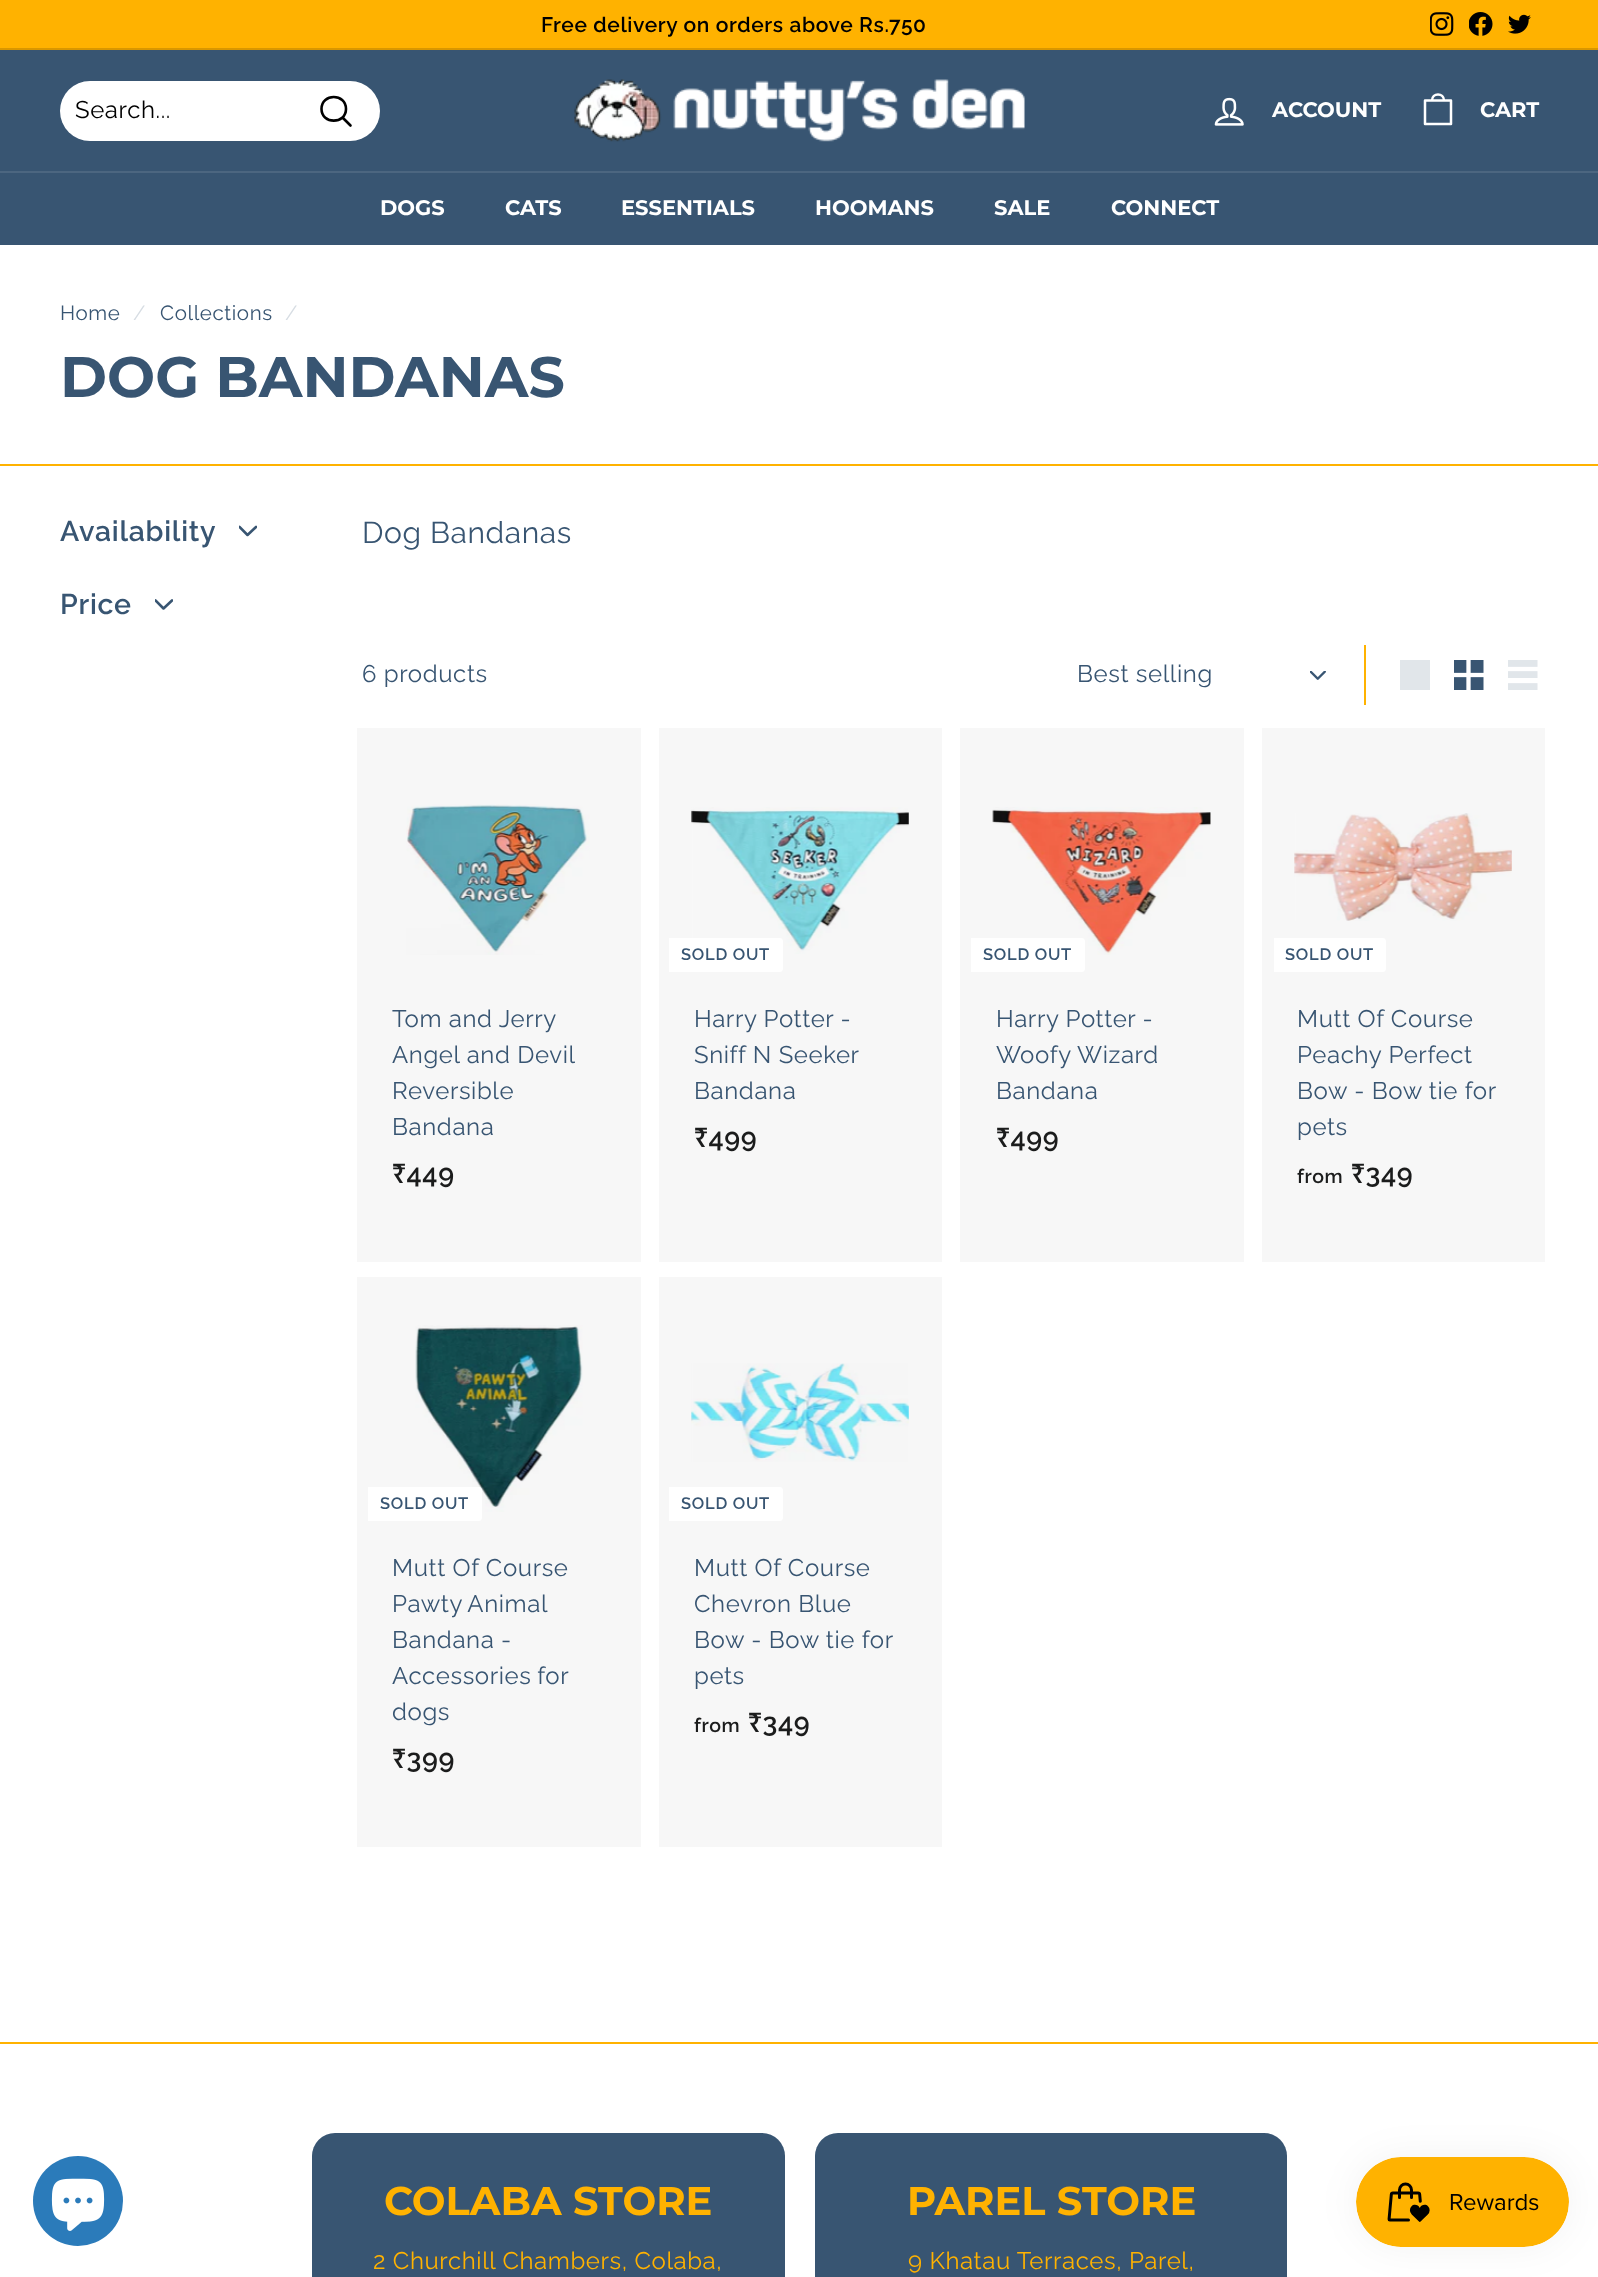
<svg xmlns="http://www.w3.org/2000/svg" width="1598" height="2277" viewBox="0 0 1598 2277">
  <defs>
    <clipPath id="clip1"><rect x="239" y="522" width="18" height="18"/></clipPath>
    <clipPath id="clip2"><rect x="155" y="596" width="18" height="18"/></clipPath>
    <filter id="blur1" x="-50%" y="-200%" width="200%" height="500%"><feGaussianBlur stdDeviation="19"/></filter>
  </defs>
  <rect width="100%" height="100%" fill="#ffffff"/>
  <rect x="659" y="1277" width="283" height="570" fill="#f7f7f7"/>
  <rect x="357" y="1277" width="284" height="570" fill="#f7f7f7"/>
  <rect x="1262" y="728" width="283" height="534" fill="#f7f7f7"/>
  <rect x="960" y="728" width="284" height="534" fill="#f7f7f7"/>
  <rect x="659" y="728" width="283" height="534" fill="#f7f7f7"/>
  <rect x="357" y="728" width="284" height="534" fill="#f7f7f7"/>
  <rect x="0" y="0" width="1598" height="48" fill="#ffb200"/>
  <text x="541" y="32" font-family="Raleway" font-size="21" font-weight="600" letter-spacing="0.6" fill="#000000">Free delivery on orders above Rs.750</text>
  <image x="1430" y="12" width="24" height="24" href="img1.png"/>
  <image x="1469" y="12" width="24" height="24" href="img2.png"/>
  <image x="1508" y="14" width="23" height="20" href="img3.png"/>
  <rect x="0" y="48" width="1598" height="2" fill="#d99700"/>
  <rect x="0" y="50" width="1598" height="121" fill="#385572"/>
  <rect x="60" y="81" width="320" height="60" rx="30" fill="#ffffff"/>
  <text x="75" y="118" font-family="Raleway" font-size="24" letter-spacing="0.6" fill="#000000">Search...</text>
  <path d="M346 109C346 124.5 321.5 124.5 321.5 109C321.5 93 346 93 346 109ZM350.5 125.5L342.5 117.5" fill="none" stroke="#000000" stroke-width="2.6" stroke-linecap="round" stroke-linejoin="round"/>
  <image x="574" y="79" width="451" height="63" href="img4.png"/>
  <image x="1214" y="97" width="30" height="29" href="img5.png"/>
  <text x="1272" y="117" font-family="Montserrat" font-size="21" font-weight="bold" fill="#ffffff">ACCOUNT</text>
  <path d="M1432 100.5C1432 92.5 1444 92.5 1444 100.5M1425 100.5H1451V124H1425Z" fill="none" stroke="#ffffff" stroke-width="2.5" stroke-linecap="round" stroke-linejoin="round"/>
  <text x="1480" y="117" font-family="Montserrat" font-size="21" font-weight="bold" fill="#ffffff">CART</text>
  <rect x="0" y="173" width="1598" height="72" fill="#385572"/>
  <rect x="0" y="171" width="1598" height="2" fill="#4c6680"/>
  <text x="380" y="215" font-family="Montserrat" font-size="21" font-weight="bold" fill="#ffffff">DOGS</text>
  <text x="505" y="215" font-family="Montserrat" font-size="21" font-weight="bold" fill="#ffffff">CATS</text>
  <text x="621" y="215" font-family="Montserrat" font-size="21" font-weight="bold" fill="#ffffff">ESSENTIALS</text>
  <text x="815" y="215" font-family="Montserrat" font-size="21" font-weight="bold" fill="#ffffff">HOOMANS</text>
  <text x="994" y="215" font-family="Montserrat" font-size="21" font-weight="bold" fill="#ffffff">SALE</text>
  <text x="1111" y="215" font-family="Montserrat" font-size="21" font-weight="bold" fill="#ffffff">CONNECT</text>
  <text x="60" y="320" font-family="Raleway" font-size="20.5" letter-spacing="0.6" fill="#385572">Home</text>
  <text x="133" y="320" font-family="Raleway" font-size="20.5" letter-spacing="0.6" fill="#d7dde3">/</text>
  <text x="160" y="320" font-family="Raleway" font-size="20.5" letter-spacing="0.6" fill="#385572">Collections</text>
  <text x="285" y="320" font-family="Raleway" font-size="20.5" letter-spacing="0.6" fill="#d7dde3">/</text>
  <text x="60" y="397" font-family="Montserrat" font-size="57" font-weight="bold" fill="#385572">DOG BANDANAS</text>
  <rect x="0" y="464" width="1598" height="2" fill="#ffb200"/>
  <text x="60" y="541" font-family="Raleway" font-size="28.5" font-weight="600" letter-spacing="0.75" fill="#385572">Availability</text>
  <g clip-path="url(#clip1)">
    <path d="M239.5 527L247.5 535L256 527" fill="none" stroke="#385572" stroke-width="2.6" stroke-linecap="round" stroke-linejoin="round"/>
  </g>
  <text x="60" y="614" font-family="Raleway" font-size="28.5" font-weight="600" letter-spacing="0.75" fill="#385572">Price</text>
  <g clip-path="url(#clip2)">
    <path d="M155.5 600.5L163.5 608.5L172 600.5" fill="none" stroke="#385572" stroke-width="2.6" stroke-linecap="round" stroke-linejoin="round"/>
  </g>
  <text x="362" y="543" font-family="Raleway" font-size="30" letter-spacing="0.6" fill="#385572">Dog Bandanas</text>
  <text x="362" y="682" font-family="Raleway" font-size="24" letter-spacing="0.6" fill="#385572">6 products</text>
  <rect x="1364" y="645" width="2" height="60" fill="#ffb200"/>
  <image x="1310" y="671" width="16" height="9" href="img6.png"/>
  <text x="1077" y="682" font-family="Raleway" font-size="24" letter-spacing="0.6" fill="#385572">Best selling</text>
  <rect x="1400" y="660" width="30" height="30" fill="#e1e6ea"/>
  <image x="1454" y="660" width="30" height="30" href="img7.png"/>
  <image x="1508" y="660" width="30" height="30" href="img8.png"/>
  <image x="406" y="804" width="184" height="151" href="img9.png"/>
  <text x="392" y="1027" font-family="Raleway" font-size="24" letter-spacing="0.6" fill="#385572">Tom and Jerry</text>
  <text x="392" y="1063" font-family="Raleway" font-size="24" letter-spacing="0.6" fill="#385572">Angel and Devil</text>
  <text x="392" y="1099" font-family="Raleway" font-size="24" letter-spacing="0.6" fill="#385572">Reversible</text>
  <text x="392" y="1135" font-family="Raleway" font-size="24" letter-spacing="0.6" fill="#385572">Bandana</text>
  <text x="392" y="1183" font-family="Raleway" font-size="27" font-weight="600" letter-spacing="0.6" fill="#1b1c1c">₹449</text>
  <image x="691" y="807" width="218" height="147" href="img10.png"/>
  <path d="M669 938H780C781.5 938 783 939.5 783 941V969C783 970.5 781.5 972 780 972H669Z" fill="#ffffff"/>
  <text x="681" y="960" font-family="Raleway" font-size="16.5" font-weight="600" letter-spacing="0.75" fill="#385572">SOLD OUT</text>
  <text x="694" y="1027" font-family="Raleway" font-size="24" letter-spacing="0.6" fill="#385572">Harry Potter -</text>
  <text x="694" y="1063" font-family="Raleway" font-size="24" letter-spacing="0.6" fill="#385572">Sniff N Seeker</text>
  <text x="694" y="1099" font-family="Raleway" font-size="24" letter-spacing="0.6" fill="#385572">Bandana</text>
  <text x="694" y="1147" font-family="Raleway" font-size="27" font-weight="600" letter-spacing="0.6" fill="#1b1c1c">₹499</text>
  <image x="992" y="807" width="219" height="148" href="img11.png"/>
  <path d="M971 938H1082C1083.5 938 1085 939.5 1085 941V969C1085 970.5 1083.5 972 1082 972H971Z" fill="#ffffff"/>
  <text x="983" y="960" font-family="Raleway" font-size="16.5" font-weight="600" letter-spacing="0.75" fill="#385572">SOLD OUT</text>
  <text x="996" y="1027" font-family="Raleway" font-size="24" letter-spacing="0.6" fill="#385572">Harry Potter -</text>
  <text x="996" y="1063" font-family="Raleway" font-size="24" letter-spacing="0.6" fill="#385572">Woofy Wizard</text>
  <text x="996" y="1099" font-family="Raleway" font-size="24" letter-spacing="0.6" fill="#385572">Bandana</text>
  <text x="996" y="1147" font-family="Raleway" font-size="27" font-weight="600" letter-spacing="0.6" fill="#1b1c1c">₹499</text>
  <image x="1294" y="813" width="218" height="108" href="img12.png"/>
  <path d="M1274 938H1383C1384.5 938 1386 939.5 1386 941V969C1386 970.5 1384.5 972 1383 972H1274Z" fill="#ffffff"/>
  <text x="1285" y="960" font-family="Raleway" font-size="16.5" font-weight="600" letter-spacing="0.75" fill="#385572">SOLD OUT</text>
  <text x="1297" y="1027" font-family="Raleway" font-size="24" letter-spacing="0.6" fill="#385572">Mutt Of Course</text>
  <text x="1297" y="1063" font-family="Raleway" font-size="24" letter-spacing="0.6" fill="#385572">Peachy Perfect</text>
  <text x="1297" y="1099" font-family="Raleway" font-size="24" letter-spacing="0.6" fill="#385572">Bow - Bow tie for</text>
  <text x="1297" y="1135" font-family="Raleway" font-size="24" letter-spacing="0.6" fill="#385572">pets</text>
  <text x="1297" y="1183" font-family="Raleway" font-size="19.5" font-weight="600" letter-spacing="0.6" fill="#1b1c1c">from</text>
  <text x="1351" y="1183" font-family="Raleway" font-size="27" font-weight="600" letter-spacing="0.6" fill="#1b1c1c">₹349</text>
  <image x="415" y="1325" width="168" height="187" href="img13.png"/>
  <path d="M368 1487H479C480.5 1487 482 1488.5 482 1490V1518C482 1519.5 480.5 1521 479 1521H368Z" fill="#ffffff"/>
  <text x="380" y="1509" font-family="Raleway" font-size="16.5" font-weight="600" letter-spacing="0.75" fill="#385572">SOLD OUT</text>
  <text x="392" y="1576" font-family="Raleway" font-size="24" letter-spacing="0.6" fill="#385572">Mutt Of Course</text>
  <text x="392" y="1612" word-spacing="-1" font-family="Raleway" font-size="24" letter-spacing="0.6" fill="#385572">Pawty Animal</text>
  <text x="392" y="1648" font-family="Raleway" font-size="24" letter-spacing="0.6" fill="#385572">Bandana -</text>
  <text x="392" y="1684" word-spacing="-1" font-family="Raleway" font-size="24" letter-spacing="0.6" fill="#385572">Accessories for</text>
  <text x="392" y="1720" font-family="Raleway" font-size="24" letter-spacing="0.6" fill="#385572">dogs</text>
  <text x="392" y="1768" font-family="Raleway" font-size="27" font-weight="600" letter-spacing="0.6" fill="#1b1c1c">₹399</text>
  <image x="691" y="1363" width="218" height="99" href="img14.png"/>
  <path d="M669 1487H780C781.5 1487 783 1488.5 783 1490V1518C783 1519.5 781.5 1521 780 1521H669Z" fill="#ffffff"/>
  <text x="681" y="1509" font-family="Raleway" font-size="16.5" font-weight="600" letter-spacing="0.75" fill="#385572">SOLD OUT</text>
  <text x="694" y="1576" font-family="Raleway" font-size="24" letter-spacing="0.6" fill="#385572">Mutt Of Course</text>
  <text x="694" y="1612" font-family="Raleway" font-size="24" letter-spacing="0.6" fill="#385572">Chevron Blue</text>
  <text x="694" y="1648" font-family="Raleway" font-size="24" letter-spacing="0.6" fill="#385572">Bow - Bow tie for</text>
  <text x="694" y="1684" font-family="Raleway" font-size="24" letter-spacing="0.6" fill="#385572">pets</text>
  <text x="694" y="1732" font-family="Raleway" font-size="19.5" font-weight="600" letter-spacing="0.6" fill="#1b1c1c">from</text>
  <text x="748" y="1732" font-family="Raleway" font-size="27" font-weight="600" letter-spacing="0.6" fill="#1b1c1c">₹349</text>
  <rect x="0" y="2042" width="1598" height="2" fill="#ffb200"/>
  <rect x="312" y="2133" width="473" height="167" rx="23" fill="#385572"/>
  <text x="384" y="2215" font-family="Montserrat" font-size="40" font-weight="bold" fill="#ffb200">COLABA STORE</text>
  <text x="373" y="2269" font-family="Raleway" font-size="24" letter-spacing="0.6" fill="#ffb200">2 Churchill Chambers, Colaba,</text>
  <rect x="815" y="2133" width="472" height="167" rx="23" fill="#385572"/>
  <text x="907" y="2215" font-family="Montserrat" font-size="40" font-weight="bold" fill="#ffb200">PAREL STORE</text>
  <text x="908" y="2269" font-family="Raleway" font-size="24" letter-spacing="0.6" fill="#ffb200">9 Khatau Terraces, Parel,</text>
  <circle cx="78" cy="2201" r="45" fill="#2b7bba"/>
  <image x="51" y="2178" width="54" height="53" href="img15.png"/>
  <rect x="1356" y="2157" width="213" height="90" rx="45" fill="#000000" fill-opacity="0.05" filter="url(#blur1)"/>
  <image x="1356" y="2157" width="213" height="90" href="img16.png"/>
</svg>
